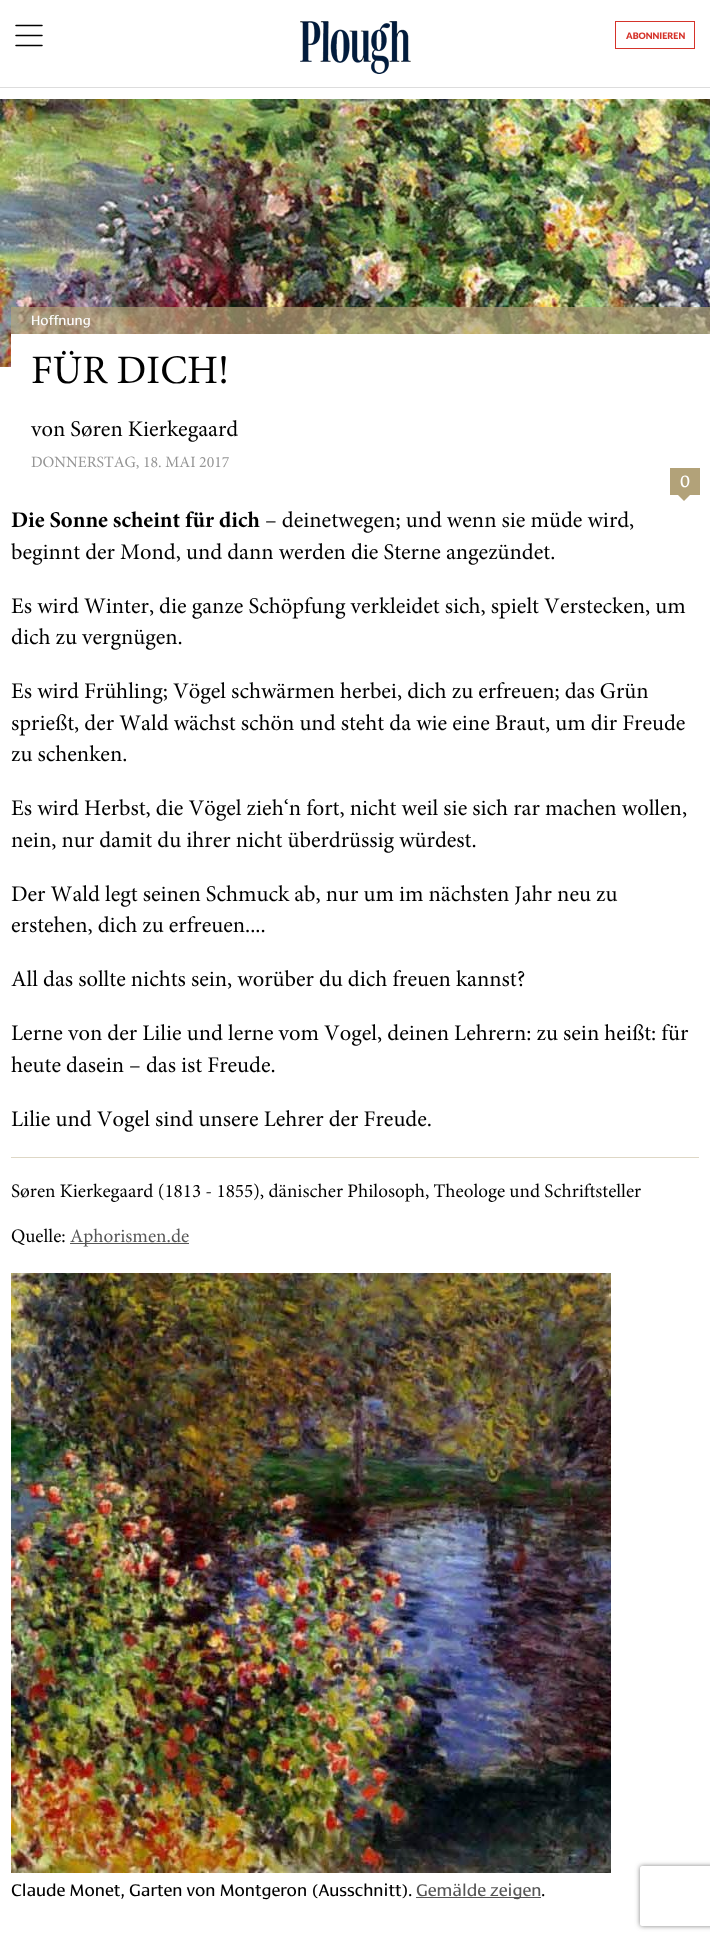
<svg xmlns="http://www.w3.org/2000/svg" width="710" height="1940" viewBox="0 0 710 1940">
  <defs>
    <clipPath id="clip1"><path d="M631 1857H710V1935H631ZM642 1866H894C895 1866 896 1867 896 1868V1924C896 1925 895 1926 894 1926H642C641 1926 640 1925 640 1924V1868C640 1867 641 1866 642 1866Z" clip-rule="evenodd"/></clipPath>
    <filter id="blur1" x="-50%" y="-200%" width="200%" height="500%"><feGaussianBlur stdDeviation="2.5"/></filter>
  </defs>
  <rect width="100%" height="100%" fill="#ffffff"/>
  <rect x="0" y="87" width="710" height="1" fill="#dddddd"/>
  <path d="M16 45.5H42M16 35.5H42M16 25.5H42" fill="none" stroke="#000000" stroke-width="1.5" stroke-linecap="round" stroke-linejoin="round"/>
  <image x="300" y="21" width="111" height="53" href="img1.png"/>
  <rect x="615.5" y="21.5" width="79" height="27" fill="none" stroke="#d5332a"/>
  <text x="626" y="39" font-family="Lato" font-size="9" font-weight="900" fill="#d5332a">ABONNIEREN</text>
  <image x="0" y="99" width="710" height="268" href="img2.png"/>
  <rect x="11" y="307" width="699" height="27" fill="#b2a279" fill-opacity="0.7"/>
  <text x="31" y="325" font-family="'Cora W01'" font-size="13.5" fill="#ffffff">Hoffnung</text>
  <rect x="11" y="334" width="699" height="33" fill="#ffffff"/>
  <text x="31" y="383" font-family="Minion" font-size="40.5" fill="#000000">FÜR DICH!</text>
  <text x="31" y="436" font-family="Minion" font-size="22.5" fill="#000000">von Søren Kierkegaard</text>
  <text x="31" y="467" font-family="Minion" font-size="15.75" fill="#959595">DONNERSTAG, 18. MAI 2017</text>
  <rect x="670" y="468" width="30" height="27" fill="#b2a279"/>
  <text x="680" y="487" font-family="'Cora W01'" font-size="16.9" fill="#ffffff">0</text>
  <path d="M678 495H690L684 501Z" fill="#b2a279"/>
  <text x="11" y="527" font-family="Minion" font-size="22.5" font-weight="bold" fill="#000000">Die Sonne scheint für dich</text>
  <text x="265" y="527" font-family="Minion" font-size="22.5" fill="#000000">– deinetwegen; und wenn sie müde wird,</text>
  <text x="11" y="559" font-family="Minion" font-size="22.5" fill="#000000">beginnt der Mond, und dann werden die Sterne angezündet.</text>
  <text x="11" y="613" font-family="Minion" font-size="22.5" fill="#000000">Es wird Winter, die ganze Schöpfung verkleidet sich, spielt Verstecken, um</text>
  <text x="11" y="644" font-family="Minion" font-size="22.5" fill="#000000">dich zu vergnügen.</text>
  <text x="11" y="698" font-family="Minion" font-size="22.5" fill="#000000">Es wird Frühling; Vögel schwärmen herbei, dich zu erfreuen; das Grün</text>
  <text x="11" y="730" font-family="Minion" font-size="22.5" fill="#000000">sprießt, der Wald wächst schön und steht da wie eine Braut, um dir Freude</text>
  <text x="11" y="761" font-family="Minion" font-size="22.5" fill="#000000">zu schenken.</text>
  <text x="11" y="815" font-family="Minion" font-size="22.5" fill="#000000">Es wird Herbst, die Vögel zieh‘n fort, nicht weil sie sich rar machen wollen,</text>
  <text x="11" y="847" font-family="Minion" font-size="22.5" fill="#000000">nein, nur damit du ihrer nicht überdrüssig würdest.</text>
  <text x="11" y="901" font-family="Minion" font-size="22.5" fill="#000000">Der Wald legt seinen Schmuck ab, nur um im nächsten Jahr neu zu</text>
  <text x="11" y="932" font-family="Minion" font-size="22.5" fill="#000000">erstehen, dich zu erfreuen....</text>
  <text x="11" y="986" font-family="Minion" font-size="22.5" fill="#000000">All das sollte nichts sein, worüber du dich freuen kannst?</text>
  <text x="11" y="1040" font-family="Minion" font-size="22.5" fill="#000000">Lerne von der Lilie und lerne vom Vogel, deinen Lehrern: zu sein heißt: für</text>
  <text x="11" y="1072" font-family="Minion" font-size="22.5" fill="#000000">heute dasein – das ist Freude.</text>
  <text x="11" y="1126" font-family="Minion" font-size="22.5" fill="#000000">Lilie und Vogel sind unsere Lehrer der Freude.</text>
  <rect x="11" y="1157" width="688" height="1" fill="#ded7c5"/>
  <text x="11" y="1197" font-family="Minion" font-size="19.1" fill="#000000">Søren Kierkegaard (1813 - 1855), dänischer Philosoph, Theologe und Schriftsteller</text>
  <text x="11" y="1242" font-family="Minion" font-size="19.1" fill="#000000">Quelle:</text>
  <rect x="70" y="1243" width="119" height="1" fill="#565656"/>
  <text x="70" y="1242" font-family="Minion" font-size="19.1" fill="#565656">Aphorismen.de</text>
  <image x="11" y="1273" width="600" height="600" href="img3.png"/>
  <text x="11" y="1896" font-family="'Cora W01'" font-size="16.9" fill="#000000">Claude Monet, Garten von Montgeron (Ausschnitt).</text>
  <rect x="416" y="1897" width="125" height="1" fill="#565656"/>
  <text x="416" y="1896" font-family="'Cora W01'" font-size="16.9" fill="#565656">Gemälde zeigen</text>
  <text x="541" y="1896" font-family="'Cora W01'" font-size="16.9" fill="#000000">.</text>
  <g clip-path="url(#clip1)">
    <rect x="640" y="1866" width="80" height="60" rx="2" fill="#808080" filter="url(#blur1)"/>
  </g>
</svg>
